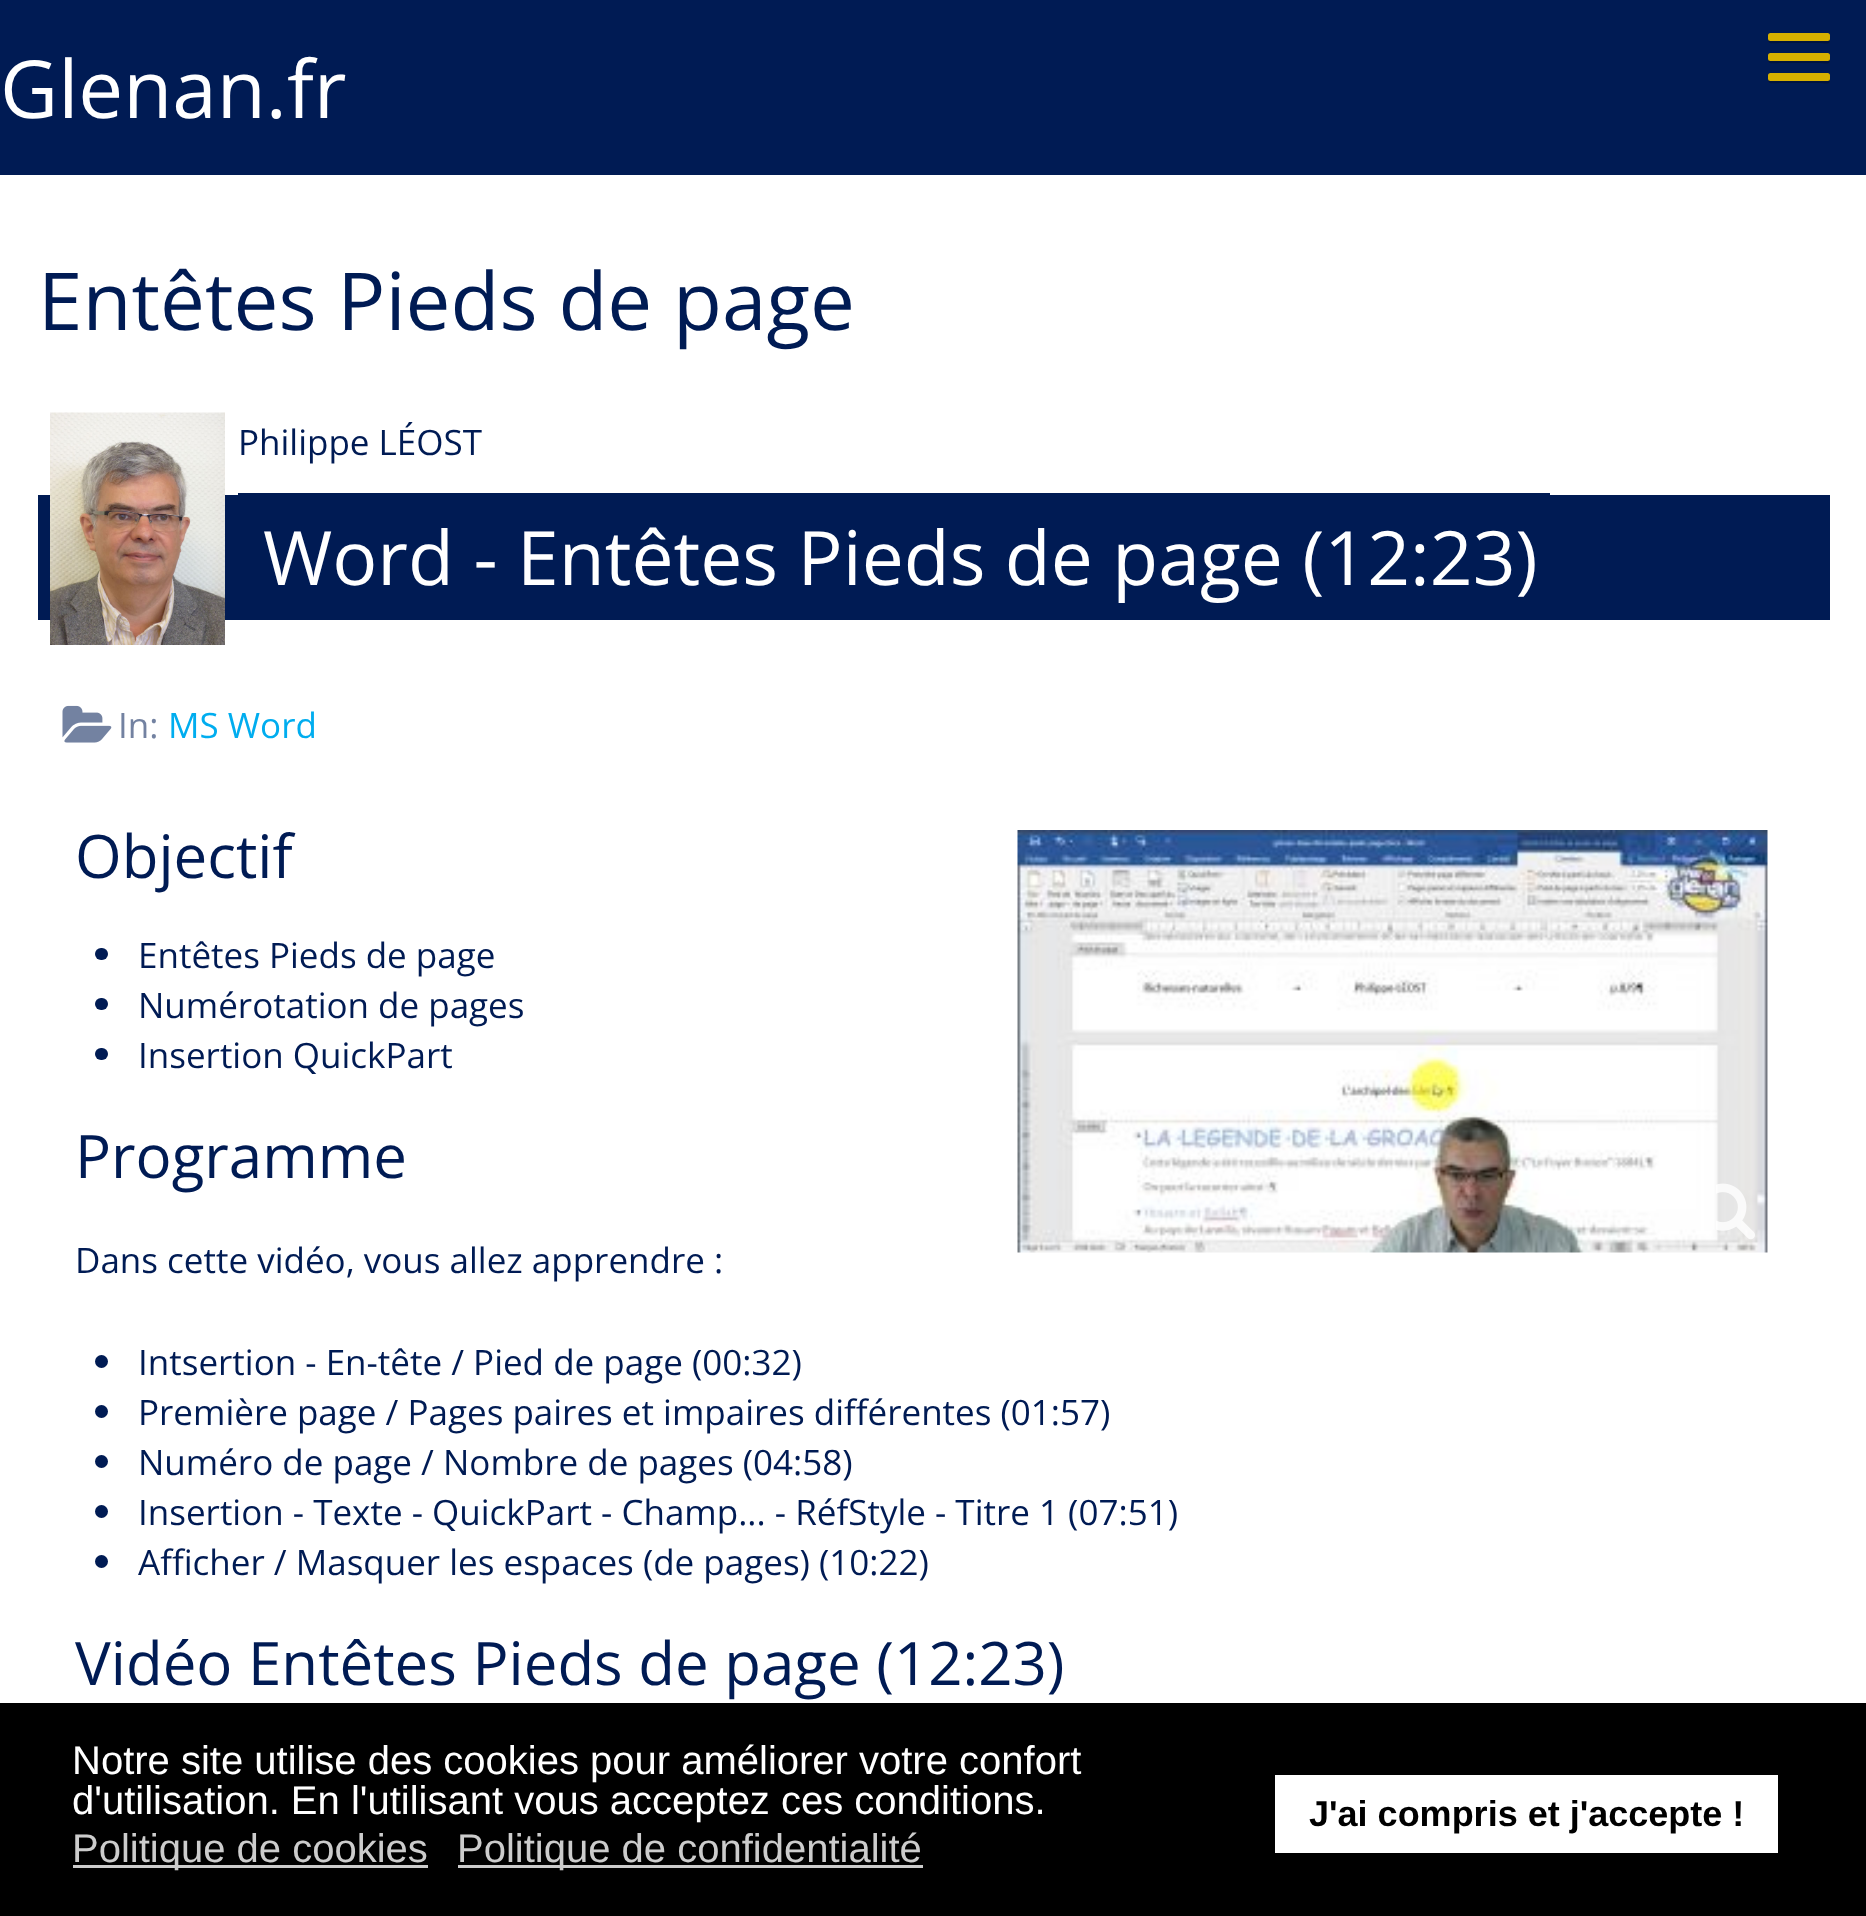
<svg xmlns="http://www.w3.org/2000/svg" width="1866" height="1916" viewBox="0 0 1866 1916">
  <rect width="100%" height="100%" fill="#ffffff"/>
  <rect x="0" y="0" width="1866" height="175" fill="#001b54"/>
  <text x="0" y="118" font-family="Open Sans" font-size="80" fill="#ffffff">Glenan.fr</text>
  <path d="M1768 39C1768 45 1774 43 1780 43H1818C1827 43 1830 46 1830 38C1830 38 1829 39 1828 40H1770Z" fill="#00143f"/>
  <rect x="1768" y="33" width="62" height="8" rx="2.5" fill="#d6b000"/>
  <path d="M1768 59C1768 65 1774 63 1780 63H1818C1827 63 1830 66 1830 58C1830 58 1829 59 1828 60H1770Z" fill="#00143f"/>
  <rect x="1768" y="53" width="62" height="8" rx="2.5" fill="#d6b000"/>
  <path d="M1768 79C1768 85 1774 83 1780 83H1818C1827 83 1830 86 1830 78C1830 78 1829 79 1828 80H1770Z" fill="#00143f"/>
  <rect x="1768" y="73" width="62" height="8" rx="2.5" fill="#d6b000"/>
  <text x="38" y="330" font-family="Open Sans" font-size="80" fill="#001b54">Entêtes Pieds de page</text>
  <rect x="38" y="495" width="1792" height="125" fill="#001b54"/>
  <image x="50" y="412" width="175" height="233" href="img1.png"/>
  <text x="238" y="455" font-family="Open Sans" font-size="35" fill="#001b54">Philippe LÉOST</text>
  <text x="263" y="585" font-family="Open Sans" font-size="75" fill="#ffffff">Word - Entêtes Pieds de page (12:23)</text>
  <rect x="238" y="493" width="1312" height="2" fill="#001b54"/>
  <image x="62" y="705" width="50" height="38" href="img2.png"/>
  <text x="118" y="738" font-family="Open Sans" font-size="35" fill="#7382a1">In:</text>
  <text x="168" y="738" font-family="Open Sans" font-size="35" fill="#00adef">MS Word</text>
  <text x="75" y="878" font-family="Open Sans" font-size="60" fill="#001b54">Objectif</text>
  <image x="1017" y="830" width="751" height="423" href="img3.png"/>
  <image x="1716" y="1183" width="39" height="57" href="img4.png"/>
  <rect x="95" y="948" width="13" height="12" rx="6" fill="#001b54"/>
  <text x="138" y="968" font-family="Open Sans" font-size="35" fill="#001b54">Entêtes Pieds de page</text>
  <rect x="95" y="998" width="13" height="12" rx="6" fill="#001b54"/>
  <text x="138" y="1018" font-family="Open Sans" font-size="35" fill="#001b54">Numérotation de pages</text>
  <rect x="95" y="1048" width="13" height="12" rx="6" fill="#001b54"/>
  <text x="138" y="1068" font-family="Open Sans" font-size="35" fill="#001b54">Insertion QuickPart</text>
  <text x="75" y="1178" font-family="Open Sans" font-size="60" fill="#001b54">Programme</text>
  <text x="75" y="1273" font-family="Open Sans" font-size="35" fill="#001b54">Dans cette vidéo, vous allez apprendre :</text>
  <circle cx="101.5" cy="1361.5" r="6.5" fill="#001b54"/>
  <text x="138" y="1375" font-family="Open Sans" font-size="35" fill="#001b54">Intsertion - En-tête / Pied de page (00:32)</text>
  <circle cx="101.5" cy="1411.5" r="6.5" fill="#001b54"/>
  <text x="138" y="1425" font-family="Open Sans" font-size="35" fill="#001b54">Première page / Pages paires et impaires différentes (01:57)</text>
  <circle cx="101.5" cy="1461.5" r="6.5" fill="#001b54"/>
  <text x="138" y="1475" font-family="Open Sans" font-size="35" fill="#001b54">Numéro de page / Nombre de pages (04:58)</text>
  <circle cx="101.5" cy="1511.5" r="6.5" fill="#001b54"/>
  <text x="138" y="1525" font-family="Open Sans" font-size="35" fill="#001b54">Insertion - Texte - QuickPart - Champ... - RéfStyle - Titre 1 (07:51)</text>
  <circle cx="101.5" cy="1561.5" r="6.5" fill="#001b54"/>
  <text x="138" y="1575" font-family="Open Sans" font-size="35" fill="#001b54">Afficher / Masquer les espaces (de pages) (10:22)</text>
  <text x="75" y="1685" font-family="Open Sans" font-size="60" fill="#001b54">Vidéo Entêtes Pieds de page (12:23)</text>
  <rect x="0" y="1703" width="1866" height="213" fill="#000000"/>
  <text x="72" y="1774" font-family="Liberation Sans" font-size="40" fill="#ffffff">Notre site utilise des cookies pour améliorer votre confort</text>
  <text x="72" y="1814" font-family="Liberation Sans" font-size="40" fill="#ffffff">d'utilisation. En l'utilisant vous acceptez ces conditions.</text>
  <rect x="73" y="1865" width="355" height="3" fill="#cccccc"/>
  <text x="72" y="1862" font-family="Liberation Sans" font-size="40" fill="#cccccc">Politique de cookies</text>
  <rect x="458" y="1865" width="465" height="3" fill="#cccccc"/>
  <text x="457" y="1862" font-family="Liberation Sans" font-size="40" fill="#cccccc">Politique de confidentialité</text>
  <rect x="1275" y="1775" width="503" height="78" fill="#ffffff"/>
  <text x="1309" y="1826" font-family="Liberation Sans" font-size="36" font-weight="bold" fill="#000000">J'ai compris et j'accepte !</text>
</svg>
